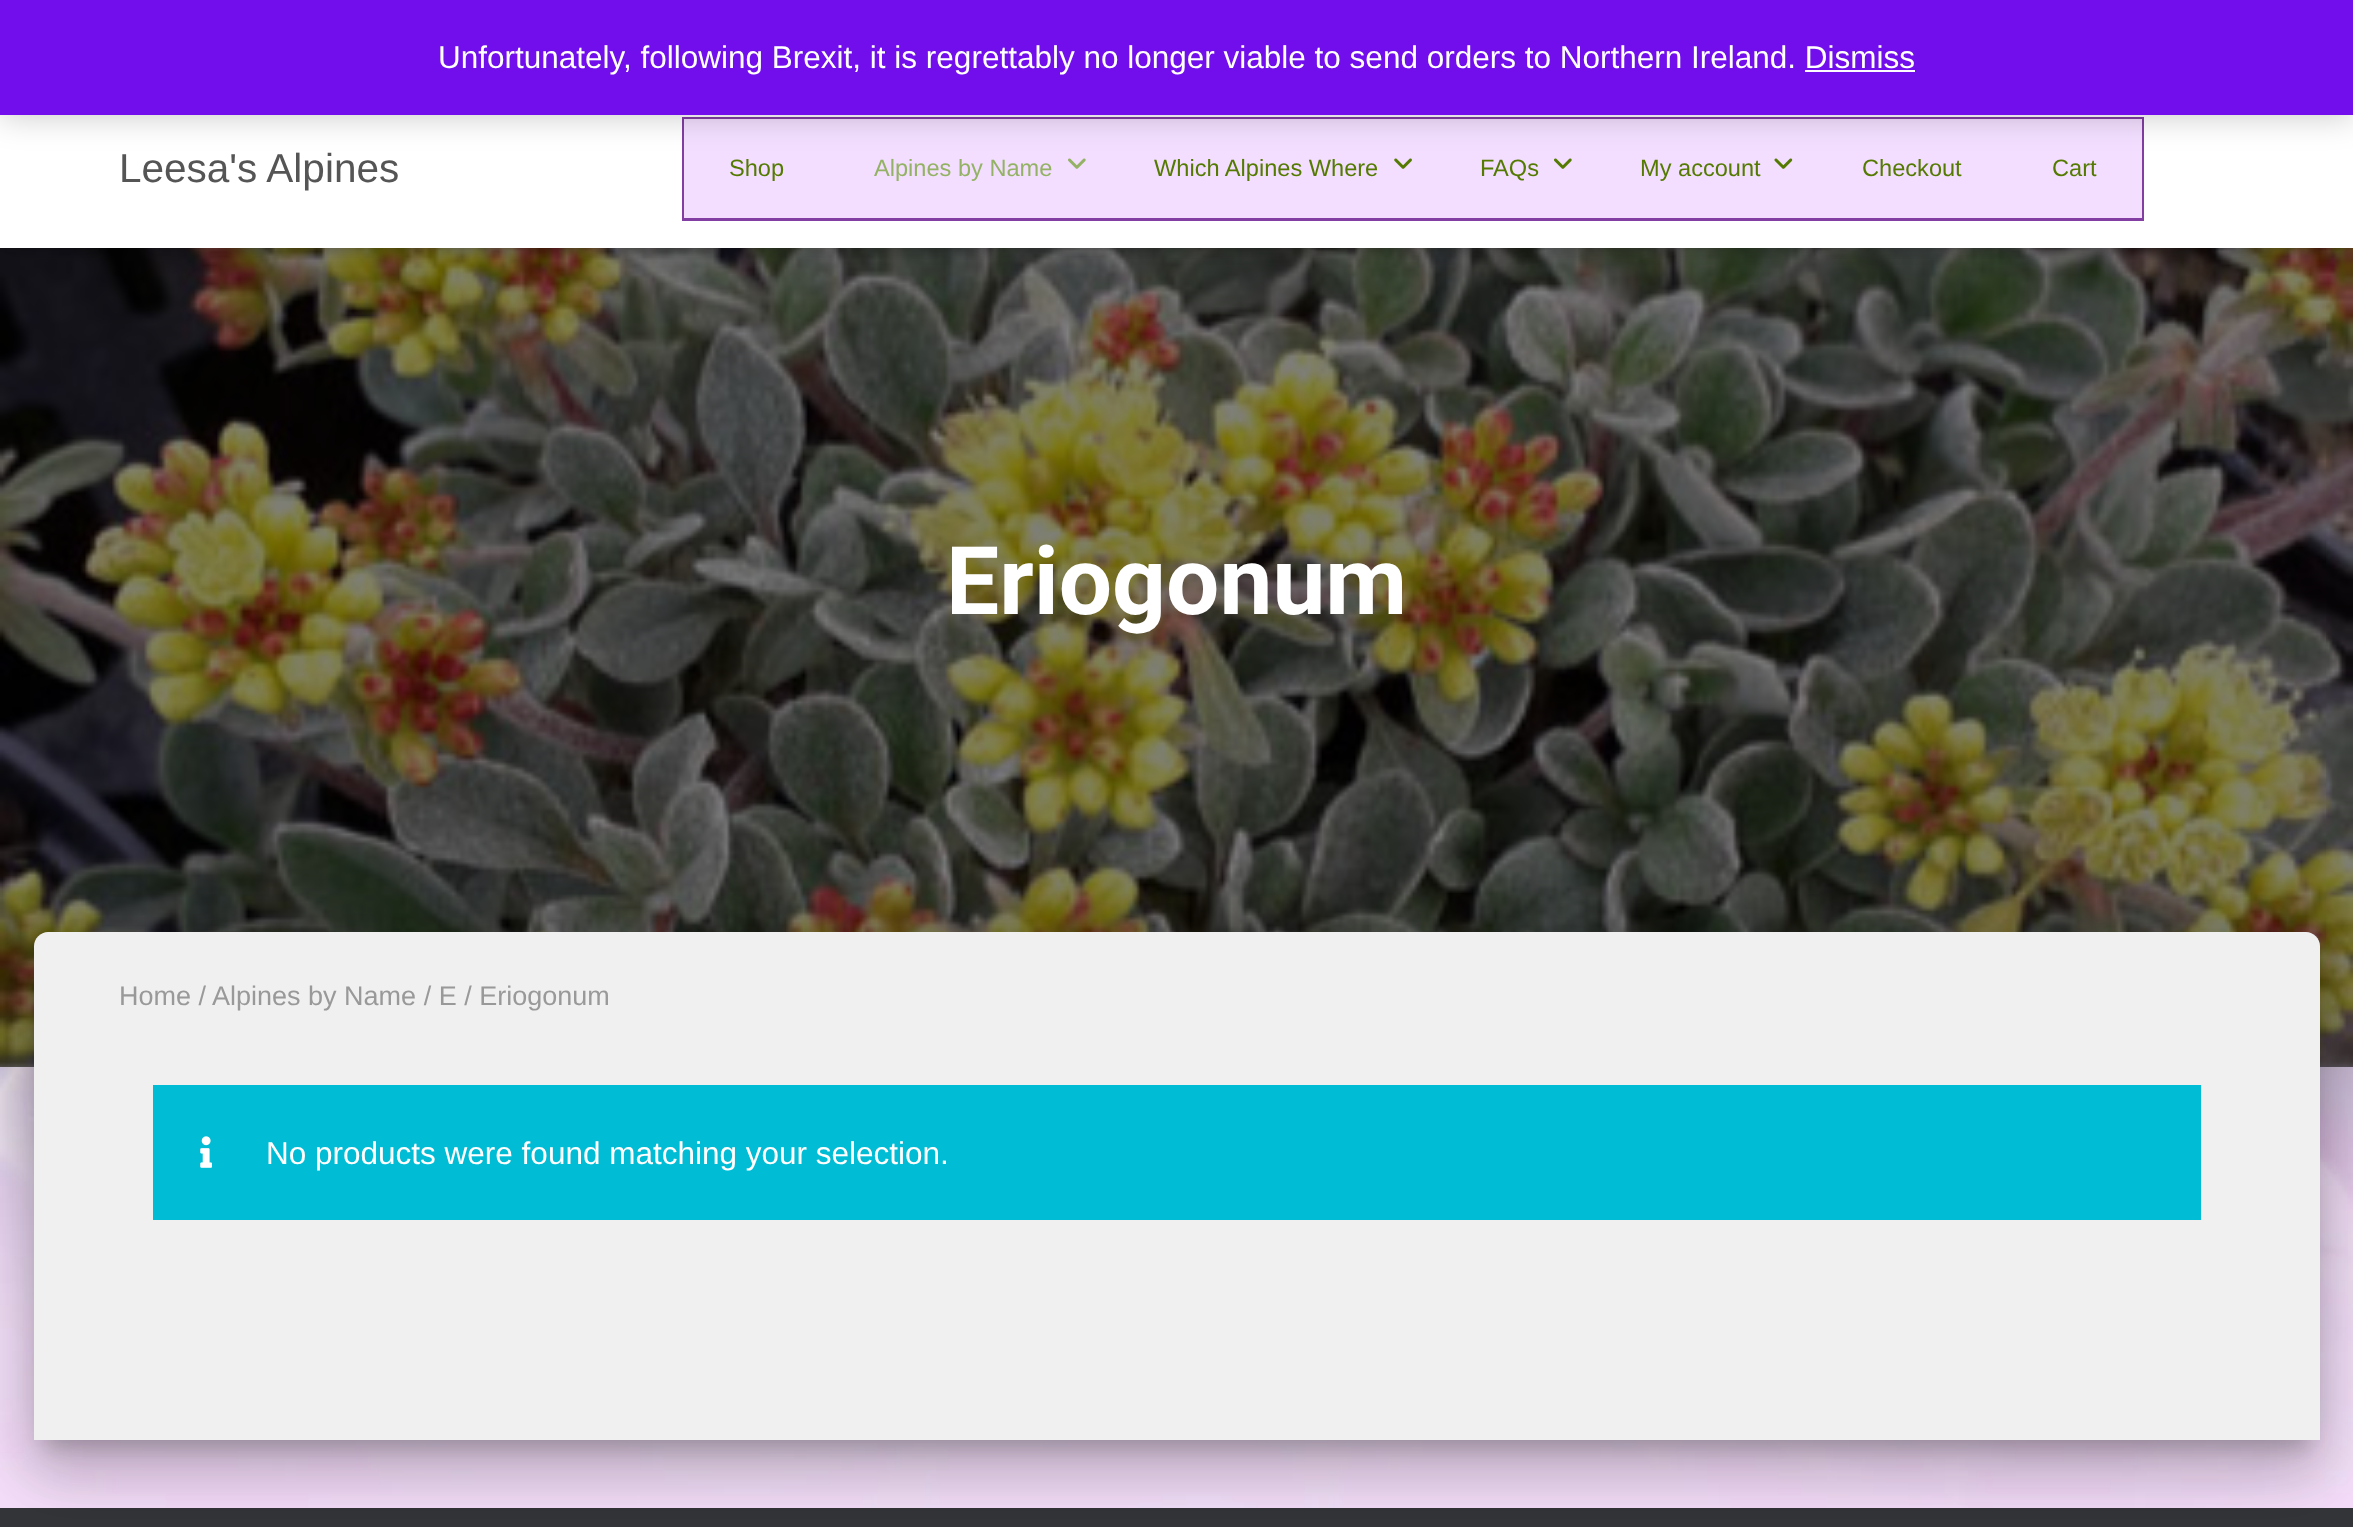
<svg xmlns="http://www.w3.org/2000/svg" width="2353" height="1527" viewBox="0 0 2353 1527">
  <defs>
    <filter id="blur1" x="-50%" y="-200%" width="200%" height="500%"><feGaussianBlur stdDeviation="5.5"/></filter>
    <filter id="blur2" x="-50%" y="-200%" width="200%" height="500%"><feGaussianBlur stdDeviation="11"/></filter>
    <filter id="blur3" x="-50%" y="-200%" width="200%" height="500%"><feGaussianBlur stdDeviation="16"/></filter>
    <filter id="blur4" x="-50%" y="-200%" width="200%" height="500%"><feGaussianBlur stdDeviation="34"/></filter>
    <filter id="blur5" x="-50%" y="-200%" width="200%" height="500%"><feGaussianBlur stdDeviation="27"/></filter>
  </defs>
  <rect width="100%" height="100%" fill="#ffffff"/>
  <image x="0" y="1062" width="2353" height="446" href="img1.png"/>
  <image x="0" y="248" width="2353" height="819" href="img6.png"/>
  <rect x="0" y="248" width="2353" height="819" fill="#000000" fill-opacity="0.5"/>
  <rect x="5" y="104" width="2344" height="148" fill="#000000" fill-opacity="0.1" filter="url(#blur1)"/>
  <rect x="0" y="92" width="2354" height="158" fill="#000000" fill-opacity="0.12" filter="url(#blur2)"/>
  <rect x="14" y="106" width="2326" height="130" fill="#000000" fill-opacity="0.42" filter="url(#blur2)"/>
  <rect x="0" y="115" width="2353" height="133" fill="#ffffff"/>
  <rect x="682" y="117" width="1462" height="104" fill="#823ea2"/>
  <rect x="684" y="119" width="1458" height="99" fill="#f3deff"/>
  <image x="1068" y="158" width="18" height="11" href="img2.png"/>
  <image x="1394" y="158" width="18" height="11" href="img3.png"/>
  <image x="1554" y="158" width="18" height="11" href="img4.png"/>
  <image x="1774" y="158" width="19" height="11" href="img5.png"/>
  <rect x="0" y="2" width="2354" height="115" fill="#000000" fill-opacity="0.2" filter="url(#blur3)"/>
  <rect x="0" y="0" width="2353" height="115" fill="#720eec"/>
  <text x="438" y="68" font-family="Liberation Sans" font-size="31.5" fill="#ffffff">Unfortunately, following Brexit, it is regrettably no longer viable to send orders to Northern Ireland. Dismiss</text>
  <rect x="1805" y="70" width="110" height="2" fill="#fcfbfe"/>
  <text x="119" y="182" font-family="Liberation Sans" font-size="40.5" fill="#555555">Leesa's Alpines</text>
  <text x="729" y="176" font-family="Liberation Sans" font-size="23.6" fill="#547a02">Shop</text>
  <text x="874" y="176" font-family="Liberation Sans" font-size="23.6" fill="#94b265">Alpines by Name</text>
  <text x="1154" y="176" font-family="Liberation Sans" font-size="23.6" fill="#547a02">Which Alpines Where</text>
  <text x="1480" y="176" font-family="Liberation Sans" font-size="23.6" fill="#547a02">FAQs</text>
  <text x="1640" y="176" font-family="Liberation Sans" font-size="23.6" fill="#547a02">My account</text>
  <text x="1862" y="176" font-family="Liberation Sans" font-size="23.6" fill="#547a02">Checkout</text>
  <text x="2052" y="176" font-family="Liberation Sans" font-size="23.6" fill="#547a02">Cart</text>
  <text x="946" y="614" font-family="Roboto" font-size="94.5" font-weight="bold" fill="#ffffff">Eriogonum</text>
  <rect x="45" y="961" width="2264" height="486" rx="2" fill="#000000" fill-opacity="0.2" filter="url(#blur2)"/>
  <rect x="0" y="1508" width="2353" height="19" fill="#323437"/>
  <rect x="23" y="934" width="2308" height="531" rx="25" fill="#000000" fill-opacity="0.12" filter="url(#blur4)"/>
  <rect x="29" y="963" width="2295" height="518" rx="18" fill="#000000" fill-opacity="0.14" filter="url(#blur5)"/>
  <path d="M48 932H2306C2313.5 932 2320 938.5 2320 946V1440H34V946C34 938.5 40.5 932 48 932Z" fill="#f0f0f0"/>
  <text x="119" y="1005" font-family="Liberation Sans" font-size="27" fill="#999999">Home / Alpines by Name / E / Eriogonum</text>
  <rect x="153" y="1085" width="2048" height="135" fill="#00bcd4"/>
  <image x="200" y="1136" width="12" height="32" href="img7.png"/>
  <text x="266" y="1164" font-family="Liberation Sans" font-size="31.5" fill="#ffffff">No products were found matching your selection.</text>
</svg>
